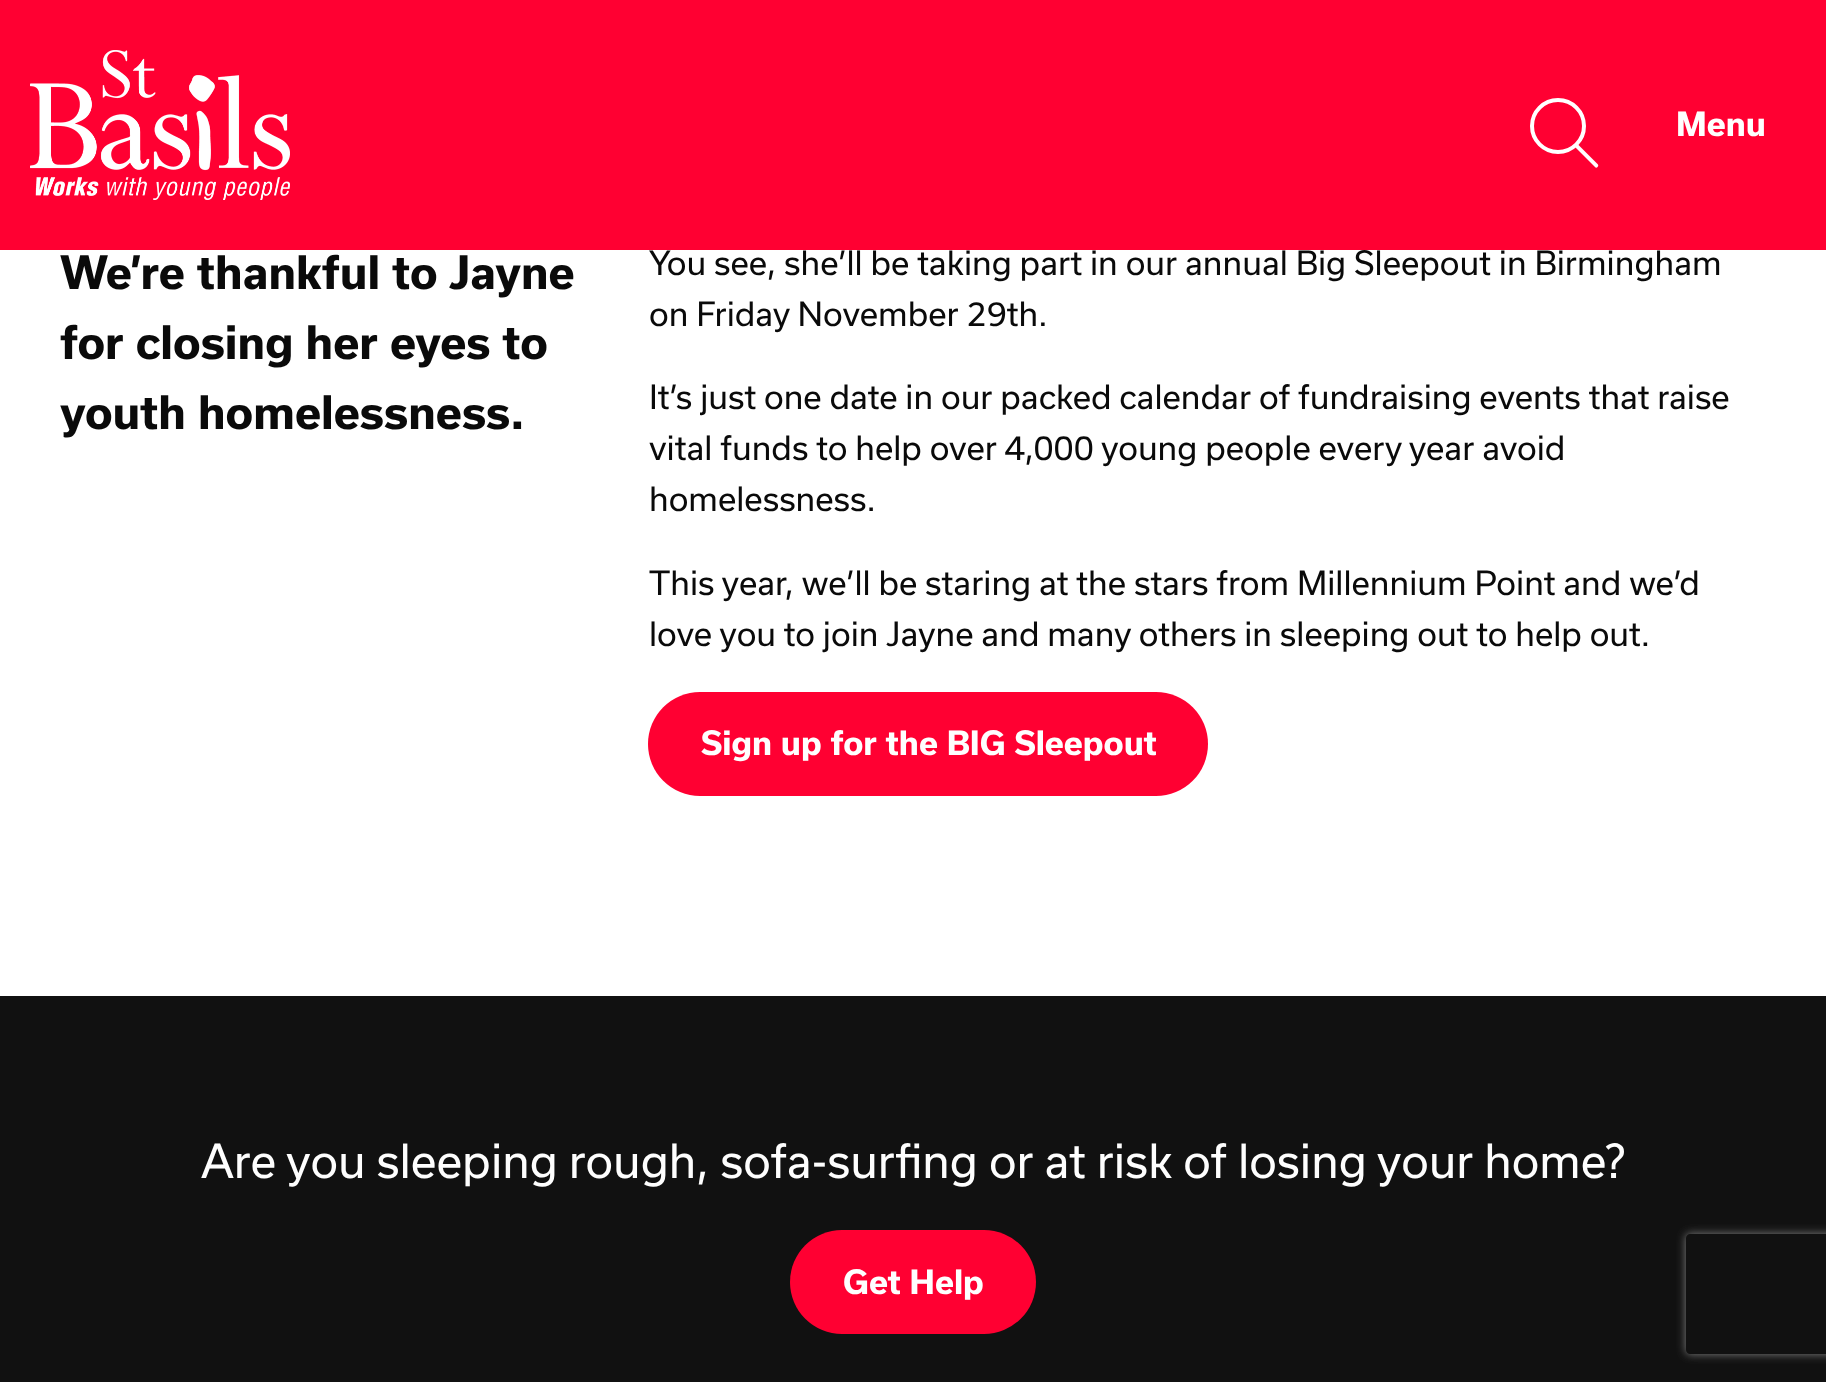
<svg xmlns="http://www.w3.org/2000/svg" width="1826" height="1382" viewBox="0 0 1826 1382">
  <defs>
    <clipPath id="clip1"><path d="M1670 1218H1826V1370H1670ZM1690 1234H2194C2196 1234 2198 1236 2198 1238V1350C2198 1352 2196 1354 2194 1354H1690C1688 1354 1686 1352 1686 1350V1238C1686 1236 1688 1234 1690 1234Z" clip-rule="evenodd"/></clipPath>
    <filter id="blur1" x="-50%" y="-200%" width="200%" height="500%"><feGaussianBlur stdDeviation="5"/></filter>
  </defs>
  <rect width="100%" height="100%" fill="#ffffff"/>
  <rect x="0" y="0" width="1826" height="250" fill="#ff0032"/>
  <image x="30" y="50" width="260" height="150" href="img1.png"/>
  <circle cx="1558" cy="126" r="26" fill="none" stroke="#ffffff" stroke-width="4"/>
  <path d="M1578 144.5L1597.5 164C1598.5 165 1598.5 166 1597.5 167C1597 168 1595.5 168 1595 167L1575 147Z" fill="#ffffff"/>
  <text x="1676" y="136" font-family="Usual" font-size="32" font-weight="bold" fill="#fefefe">Menu</text>
  <text x="60" y="289" font-family="Usual" font-size="44" font-weight="bold" fill="#0a0a0a">We’re thankful to Jayne</text>
  <text x="60" y="359" font-family="Usual" font-size="44" font-weight="bold" fill="#0a0a0a">for closing her eyes to</text>
  <text x="60" y="429" font-family="Usual" font-size="44" font-weight="bold" fill="#0a0a0a">youth homelessness.</text>
  <text x="649" y="275" font-family="Usual" font-size="32" fill="#0a0a0a">You see, she’ll be taking part in our annual Big Sleepout in Birmingham</text>
  <text x="649" y="326" font-family="Usual" font-size="32" fill="#0a0a0a">on Friday November 29th.</text>
  <text x="649" y="409" font-family="Usual" font-size="32" fill="#0a0a0a">It’s just one date in our packed calendar of fundraising events that raise</text>
  <text x="649" y="460" font-family="Usual" font-size="32" fill="#0a0a0a">vital funds to help over 4,000 young people every year avoid</text>
  <text x="649" y="511" font-family="Usual" font-size="32" fill="#0a0a0a">homelessness.</text>
  <text x="649" y="595" font-family="Usual" font-size="32" fill="#0a0a0a">This year, we’ll be staring at the stars from Millennium Point and we’d</text>
  <text x="649" y="646" font-family="Usual" font-size="32" fill="#0a0a0a">love you to join Jayne and many others in sleeping out to help out.</text>
  <rect x="648" y="692" width="560" height="104" rx="52" fill="#ff0032"/>
  <text x="701" y="755" font-family="Usual" font-size="32" font-weight="bold" fill="#fefefe">Sign up for the BIG Sleepout</text>
  <rect x="0" y="996" width="1826" height="386" fill="#111111"/>
  <text x="201" y="1178" font-family="Usual" font-size="44.8" fill="#fefefe">Are you sleeping rough, sofa-surfing or at risk of losing your home?</text>
  <rect x="790" y="1230" width="246" height="104" rx="52" fill="#ff0032"/>
  <text x="843" y="1294" font-family="Usual" font-size="32" font-weight="bold" fill="#fefefe">Get Help</text>
  <g clip-path="url(#clip1)">
    <rect x="1686" y="1234" width="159" height="120" rx="4" fill="#808080" filter="url(#blur1)"/>
  </g>
</svg>
